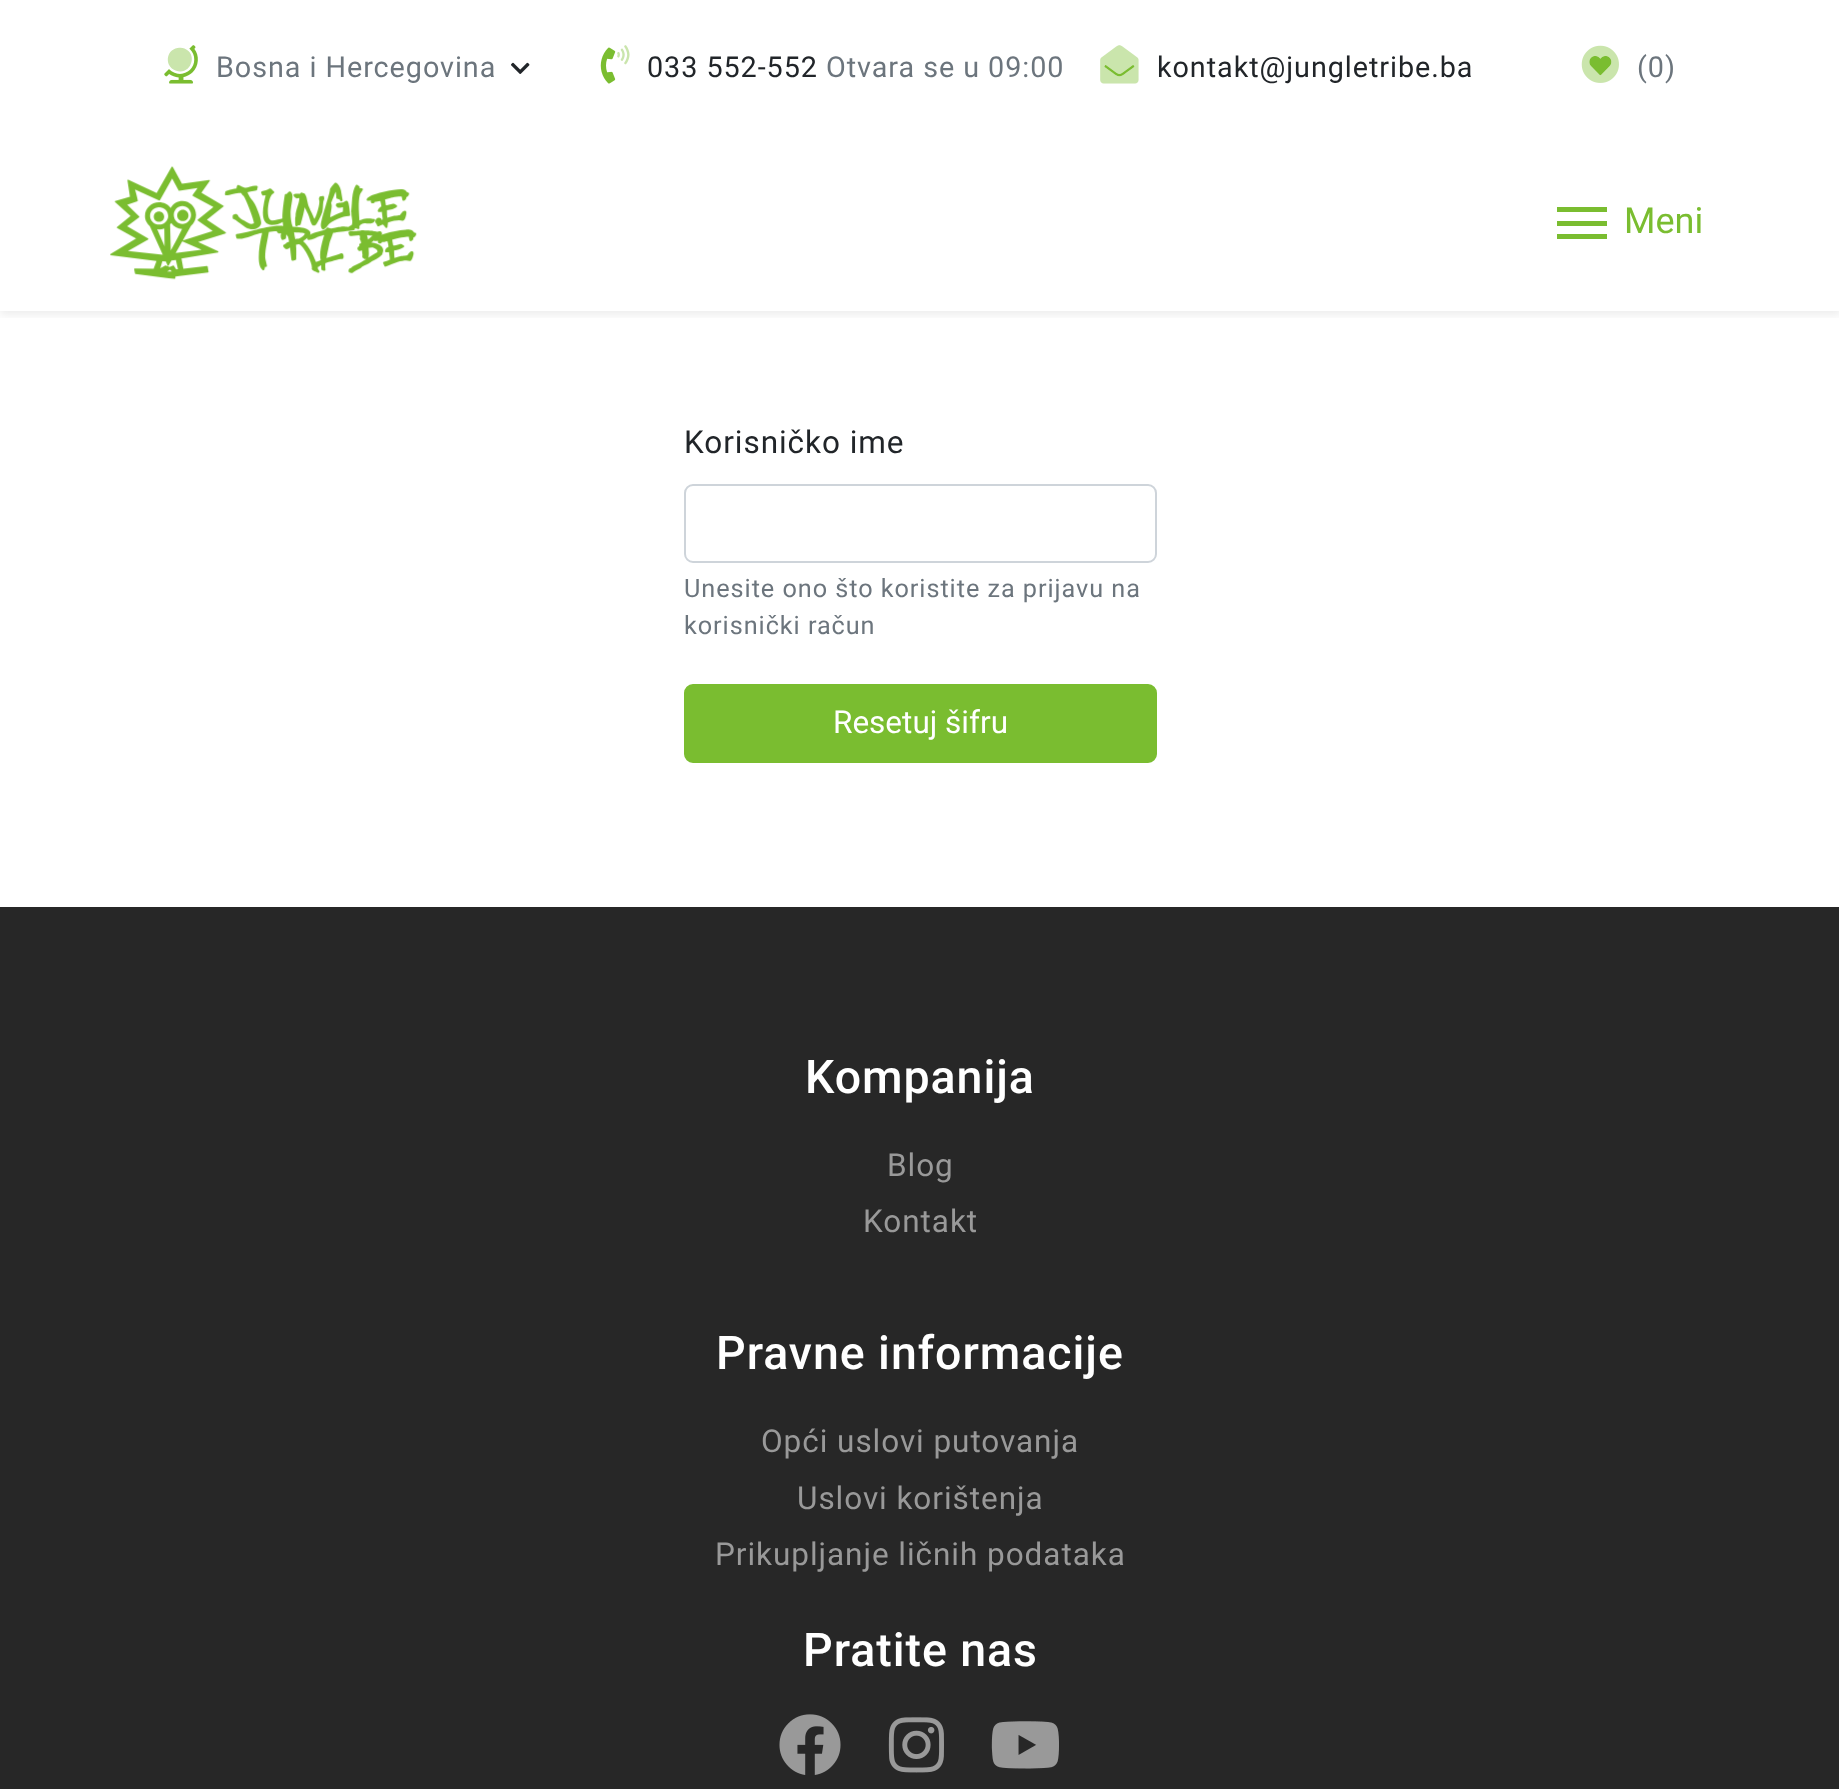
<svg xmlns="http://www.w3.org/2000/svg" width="1839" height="1789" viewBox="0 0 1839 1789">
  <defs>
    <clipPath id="clip1"><rect x="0" y="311" width="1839" height="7"/></clipPath>
    <filter id="blur1" x="-50%" y="-200%" width="200%" height="500%"><feGaussianBlur stdDeviation="4.5"/></filter>
  </defs>
  <rect width="100%" height="100%" fill="#ffffff"/>
  <g clip-path="url(#clip1)">
    <rect x="0" y="5" width="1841" height="310" fill="#000000" fill-opacity="0.07" filter="url(#blur1)"/>
  </g>
  <image x="164" y="45" width="34" height="39" href="img1.png"/>
  <path d="M175.5 70.5C164.5 66.5 165.5 50 177.5 48C180 47.5 182.5 47.5 184.5 48.5C199 54.5 190 76.5 175.5 70.5Z" fill="#cae5ac"/>
  <text x="216" y="77" font-family="Roboto" font-size="28.75" letter-spacing="0.95" fill="#6c757d">Bosna i Hercegovina</text>
  <image x="511" y="62" width="19" height="12" href="img2.png"/>
  <image x="600" y="47" width="16" height="37" href="img3.png"/>
  <image x="617" y="45" width="13" height="20" href="img4.png"/>
  <text x="647" y="77" font-family="Roboto" font-size="28.75" letter-spacing="0.95" fill="#212529">033 552-552</text>
  <text x="826" y="77" font-family="Roboto" font-size="28.75" letter-spacing="0.95" fill="#6c757d">Otvara se u 09:00</text>
  <image x="1104" y="65" width="31" height="12" href="img6.png"/>
  <image x="1100" y="45" width="39" height="39" href="img5.png"/>
  <text x="1157" y="77" font-family="Roboto" font-size="28.75" letter-spacing="0.95" fill="#212529">kontakt@jungletribe.ba</text>
  <image x="1589" y="56" width="23" height="20" href="img8.png"/>
  <image x="1581" y="45" width="38" height="38" href="img7.png"/>
  <text x="1637" y="77" font-family="Roboto" font-size="28.75" letter-spacing="0.95" fill="#6c757d">(0)</text>
  <rect x="0" y="310" width="1839" height="1" fill="#ffffff"/>
  <image x="110" y="166" width="307" height="114" href="img9.png"/>
  <rect x="1557" y="207" width="50" height="5" fill="#7abd30"/>
  <rect x="1557" y="221" width="50" height="5" fill="#7abd30"/>
  <rect x="1557" y="234" width="50" height="5" fill="#7abd30"/>
  <text x="1624" y="233" font-family="Roboto" font-size="36" fill="#7abd30">Meni</text>
  <text x="684" y="453" font-family="Roboto" font-size="31.5" letter-spacing="0.95" fill="#212529">Korisničko ime</text>
  <rect x="685" y="485" width="471" height="77" rx="8" fill="none" stroke="#ced4da" stroke-width="2"/>
  <text x="684" y="597" font-family="Roboto" font-size="25.25" letter-spacing="0.95" fill="#6c757d">Unesite ono što koristite za prijavu na</text>
  <text x="684" y="634" font-family="Roboto" font-size="25.25" letter-spacing="0.95" fill="#6c757d">korisnički račun</text>
  <rect x="685" y="685" width="471" height="77" rx="8" fill="#7abd30" stroke="#7abd30" stroke-width="2"/>
  <text x="833" y="733" font-family="Roboto" font-size="31.5" fill="#ffffff">Resetuj šifru</text>
  <rect x="0" y="907" width="1839" height="882" fill="#272727"/>
  <text x="805" y="1093" font-family="Roboto" font-size="46.5" font-weight="500" letter-spacing="0.95" fill="#ffffff">Kompanija</text>
  <text x="887" y="1176" font-family="Roboto" font-size="31.5" letter-spacing="0.95" fill="#999999">Blog</text>
  <text x="863" y="1232" font-family="Roboto" font-size="31.5" letter-spacing="0.95" fill="#999999">Kontakt</text>
  <text x="716" y="1369" font-family="Roboto" font-size="46.5" font-weight="500" letter-spacing="0.95" fill="#ffffff">Pravne informacije</text>
  <text x="761" y="1452" font-family="Roboto" font-size="31.5" letter-spacing="0.95" fill="#999999">Opći uslovi putovanja</text>
  <text x="797" y="1509" font-family="Roboto" font-size="31.5" letter-spacing="0.95" fill="#999999">Uslovi korištenja</text>
  <text x="715" y="1565" font-family="Roboto" font-size="31.5" letter-spacing="0.95" fill="#999999">Prikupljanje ličnih podataka</text>
  <text x="803" y="1666" font-family="Roboto" font-size="46.5" font-weight="500" letter-spacing="0.95" fill="#ffffff">Pratite nas</text>
  <image x="779" y="1714" width="62" height="61" href="img10.png"/>
  <image x="888" y="1717" width="56" height="56" href="img11.png"/>
  <image x="991" y="1721" width="68" height="48" href="img12.png"/>
</svg>
